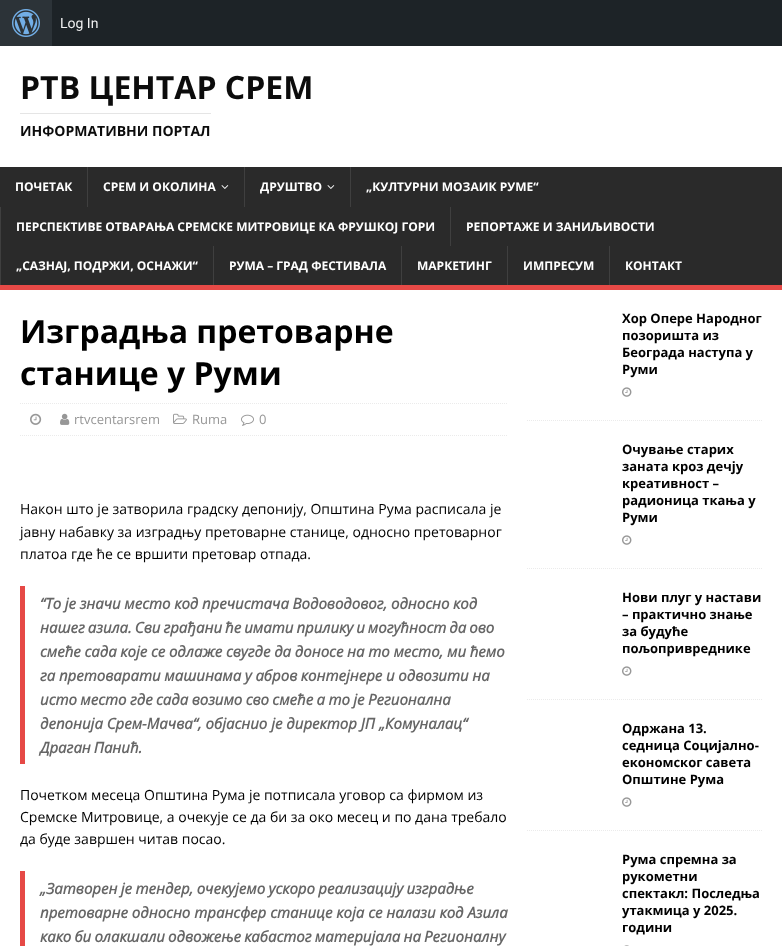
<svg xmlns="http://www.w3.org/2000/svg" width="782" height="946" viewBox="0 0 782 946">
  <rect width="100%" height="100%" fill="#ffffff"/>
  <rect x="52" y="0" width="730" height="46" fill="#1d2327"/>
  <rect x="0" y="0" width="52" height="46" fill="#2c3338"/>
  <image x="12" y="9" width="28" height="28" href="img1.png"/>
  <text x="60" y="28" font-family="Roboto" font-size="14" fill="#f0f0f1">Log In</text>
  <text x="20" y="99" font-family="Open Sans" font-size="32" font-weight="bold" fill="#0c0c0c">РТВ ЦЕНТАР СРЕМ</text>
  <rect x="20" y="113" width="191" height="1" fill="#e5e5e5"/>
  <text x="20" y="136" font-family="Open Sans" font-size="14" font-weight="bold" fill="#0c0c0c">ИНФОРМАТИВНИ ПОРТАЛ</text>
  <rect x="0" y="167" width="782" height="118" fill="#2a2a2a"/>
  <rect x="0" y="285" width="782" height="5" fill="#e64946"/>
  <text x="15" y="191" font-family="Open Sans" font-size="12" font-weight="bold" fill="#ffffff">ПОЧЕТАК</text>
  <rect x="87" y="167" width="1" height="40" fill="#3f3f3f"/>
  <text x="103" y="191" font-family="Open Sans" font-size="12" font-weight="bold" fill="#ffffff">СРЕМ И ОКОЛИНА</text>
  <image x="221" y="185" width="8" height="4" href="img2.png"/>
  <rect x="244" y="167" width="1" height="40" fill="#3f3f3f"/>
  <text x="260" y="191" font-family="Open Sans" font-size="12" font-weight="bold" fill="#ffffff">ДРУШТВО</text>
  <image x="327" y="185" width="8" height="4" href="img2.png"/>
  <rect x="350" y="167" width="1" height="40" fill="#3f3f3f"/>
  <text x="366" y="191" font-family="Open Sans" font-size="12" font-weight="bold" fill="#ffffff">„КУЛТУРНИ МОЗАИК РУМЕ“</text>
  <rect x="0" y="207" width="1" height="78" fill="#3f3f3f"/>
  <text x="16" y="231" font-family="Open Sans" font-size="12" font-weight="bold" fill="#ffffff">ПЕРСПЕКТИВЕ ОТВАРАЊА СРЕМСКЕ МИТРОВИЦЕ КА ФРУШКОЈ ГОРИ</text>
  <rect x="450" y="207" width="1" height="39" fill="#3f3f3f"/>
  <text x="466" y="231" font-family="Open Sans" font-size="12" font-weight="bold" fill="#ffffff">РЕПОРТАЖЕ И ЗАНИЉИВОСТИ</text>
  <text x="16" y="270" font-family="Open Sans" font-size="12" font-weight="bold" fill="#ffffff">„САЗНАЈ, ПОДРЖИ, ОСНАЖИ“</text>
  <rect x="213" y="246" width="1" height="39" fill="#3f3f3f"/>
  <text x="229" y="270" font-family="Open Sans" font-size="12" font-weight="bold" fill="#ffffff">РУМА – ГРАД ФЕСТИВАЛА</text>
  <rect x="401" y="246" width="1" height="39" fill="#3f3f3f"/>
  <text x="417" y="270" font-family="Open Sans" font-size="12" font-weight="bold" fill="#ffffff">МАРКЕТИНГ</text>
  <rect x="507" y="246" width="1" height="39" fill="#3f3f3f"/>
  <text x="523" y="270" font-family="Open Sans" font-size="12" font-weight="bold" fill="#ffffff">ИМПРЕСУМ</text>
  <rect x="609" y="246" width="1" height="39" fill="#3f3f3f"/>
  <text x="625" y="270" font-family="Open Sans" font-size="12" font-weight="bold" fill="#ffffff">КОНТАКТ</text>
  <text x="20" y="343" font-family="Open Sans" font-size="32" font-weight="bold" fill="#000000">Изградња претоварне</text>
  <text x="20" y="385" font-family="Open Sans" font-size="32" font-weight="bold" fill="#000000">станице у Руми</text>
  <path d="M20 403.5H508" fill="none" stroke="#ebebeb" stroke-dasharray="1 1"/>
  <path d="M20 435.5H508" fill="none" stroke="#ebebeb" stroke-dasharray="1 1"/>
  <image x="30" y="413" width="12" height="12" href="img3.png"/>
  <image x="60" y="413" width="10" height="12" href="img4.png"/>
  <text x="74" y="424" font-family="Open Sans" font-size="13" fill="#979797">rtvcentarsrem</text>
  <image x="173" y="413" width="14" height="11" href="img5.png"/>
  <text x="192" y="424" font-family="Open Sans" font-size="13" fill="#979797">Ruma</text>
  <image x="241" y="414" width="13" height="12" href="img6.png"/>
  <text x="259" y="424" font-family="Open Sans" font-size="13" fill="#979797">0</text>
  <text x="20" y="514" font-family="Open Sans" font-size="14" fill="#000000">Након што је затворила градску депонију, Општина Рума расписала је</text>
  <text x="20" y="537" font-family="Open Sans" font-size="14" fill="#000000">јавну набавку за изградњу претоварне станице, односно претоварног</text>
  <text x="20" y="559" font-family="Open Sans" font-size="14" fill="#000000">платоа где ће се вршити претовар отпада.</text>
  <rect x="20" y="586" width="5" height="178" fill="#e64946"/>
  <text x="40" y="609" word-spacing="-0.25" font-family="Open Sans" font-size="15" font-weight="bold" font-style="italic" fill="#666666">“То је значи место код пречистача Водоводовог, односно код</text>
  <text x="40" y="633" word-spacing="-0.9" font-family="Open Sans" font-size="15" font-weight="bold" font-style="italic" fill="#666666">нашег азила. Сви грађани ће имати прилику и могућност да ово</text>
  <text x="40" y="657" word-spacing="-0.2" font-family="Open Sans" font-size="15" font-weight="bold" font-style="italic" fill="#666666">смеће сада које се одлаже свугде да доносе на то место, ми ћемо</text>
  <text x="40" y="681" word-spacing="-0.25" font-family="Open Sans" font-size="15" font-weight="bold" font-style="italic" fill="#666666">га претоварати машинама у абров контејнере и одвозити на</text>
  <text x="40" y="705" word-spacing="-0.5" font-family="Open Sans" font-size="15" font-weight="bold" font-style="italic" fill="#666666">исто место где сада возимо сво смеће а то је Регионална</text>
  <text x="40" y="729" font-family="Open Sans" font-size="15" font-weight="bold" font-style="italic" fill="#666666">депонија Срем-Мачва“, објаснио је директор ЈП „Комуналац“</text>
  <text x="40" y="753" word-spacing="-1" font-family="Open Sans" font-size="15" font-weight="bold" font-style="italic" fill="#666666">Драган Панић.</text>
  <text x="20" y="800" font-family="Open Sans" font-size="14" fill="#000000">Почетком месеца Општина Рума је потписала уговор са фирмом из</text>
  <text x="20" y="822" font-family="Open Sans" font-size="14" fill="#000000">Сремске Митровице, а очекује се да би за око месец и по дана требало</text>
  <text x="20" y="844" font-family="Open Sans" font-size="14" fill="#000000">да буде завршен читав посао.</text>
  <rect x="20" y="871" width="5" height="75" fill="#e64946"/>
  <text x="40" y="894" word-spacing="-0.5" font-family="Open Sans" font-size="15" font-weight="bold" font-style="italic" fill="#666666">„Затворен је тендер, очекујемо ускоро реализацију изградње</text>
  <text x="40" y="918" font-family="Open Sans" font-size="15" font-weight="bold" font-style="italic" fill="#666666">претоварне односно трансфер станице која се налази код Азила</text>
  <text x="40" y="942" word-spacing="-0.75" font-family="Open Sans" font-size="15" font-weight="bold" font-style="italic" fill="#666666">како би олакшали одвожење кабастог материјала на Регионалну</text>
  <path d="M527 420.5H762" fill="none" stroke="#ebebeb" stroke-dasharray="1 1"/>
  <text x="622" y="323" font-family="Open Sans" font-size="13" font-weight="bold" fill="#000000">Хор Опере Народног</text>
  <text x="622" y="340" font-family="Open Sans" font-size="13" font-weight="bold" fill="#000000">позоришта из</text>
  <text x="622" y="357" font-family="Open Sans" font-size="13" font-weight="bold" fill="#000000">Београда наступа у</text>
  <text x="622" y="374" font-family="Open Sans" font-size="13" font-weight="bold" fill="#000000">Руми</text>
  <image x="622" y="387" width="10" height="10" href="img7.png"/>
  <path d="M527 568.5H762" fill="none" stroke="#ebebeb" stroke-dasharray="1 1"/>
  <text x="622" y="454" font-family="Open Sans" font-size="13" font-weight="bold" fill="#000000">Очување старих</text>
  <text x="622" y="471" font-family="Open Sans" font-size="13" font-weight="bold" fill="#000000">заната кроз дечју</text>
  <text x="622" y="488" font-family="Open Sans" font-size="13" font-weight="bold" fill="#000000">креативност –</text>
  <text x="622" y="505" font-family="Open Sans" font-size="13" font-weight="bold" fill="#000000">радионица ткања у</text>
  <text x="622" y="522" font-family="Open Sans" font-size="13" font-weight="bold" fill="#000000">Руми</text>
  <image x="622" y="535" width="10" height="10" href="img7.png"/>
  <path d="M527 699.5H762" fill="none" stroke="#ebebeb" stroke-dasharray="1 1"/>
  <text x="622" y="602" font-family="Open Sans" font-size="13" font-weight="bold" fill="#000000">Нови плуг у настави</text>
  <text x="622" y="619" font-family="Open Sans" font-size="13" font-weight="bold" fill="#000000">– практично знање</text>
  <text x="622" y="636" font-family="Open Sans" font-size="13" font-weight="bold" fill="#000000">за будуће</text>
  <text x="622" y="653" font-family="Open Sans" font-size="13" font-weight="bold" fill="#000000">пољопривреднике</text>
  <image x="622" y="666" width="10" height="10" href="img7.png"/>
  <path d="M527 830.5H762" fill="none" stroke="#ebebeb" stroke-dasharray="1 1"/>
  <text x="622" y="733" font-family="Open Sans" font-size="13" font-weight="bold" fill="#000000">Одржана 13.</text>
  <text x="622" y="750" font-family="Open Sans" font-size="13" font-weight="bold" fill="#000000">седница Социјално-</text>
  <text x="622" y="767" font-family="Open Sans" font-size="13" font-weight="bold" fill="#000000">економског савета</text>
  <text x="622" y="784" font-family="Open Sans" font-size="13" font-weight="bold" fill="#000000">Општине Рума</text>
  <image x="622" y="797" width="10" height="10" href="img7.png"/>
  <text x="622" y="864" font-family="Open Sans" font-size="13" font-weight="bold" fill="#000000">Рума спремна за</text>
  <text x="622" y="881" font-family="Open Sans" font-size="13" font-weight="bold" fill="#000000">рукометни</text>
  <text x="622" y="898" font-family="Open Sans" font-size="13" font-weight="bold" fill="#000000">спектакл: Последња</text>
  <text x="622" y="915" font-family="Open Sans" font-size="13" font-weight="bold" fill="#000000">утакмица у 2025.</text>
  <text x="622" y="932" font-family="Open Sans" font-size="13" font-weight="bold" fill="#000000">години</text>
  <image x="624" y="945" width="5" height="1" href="img8.png"/>
</svg>
